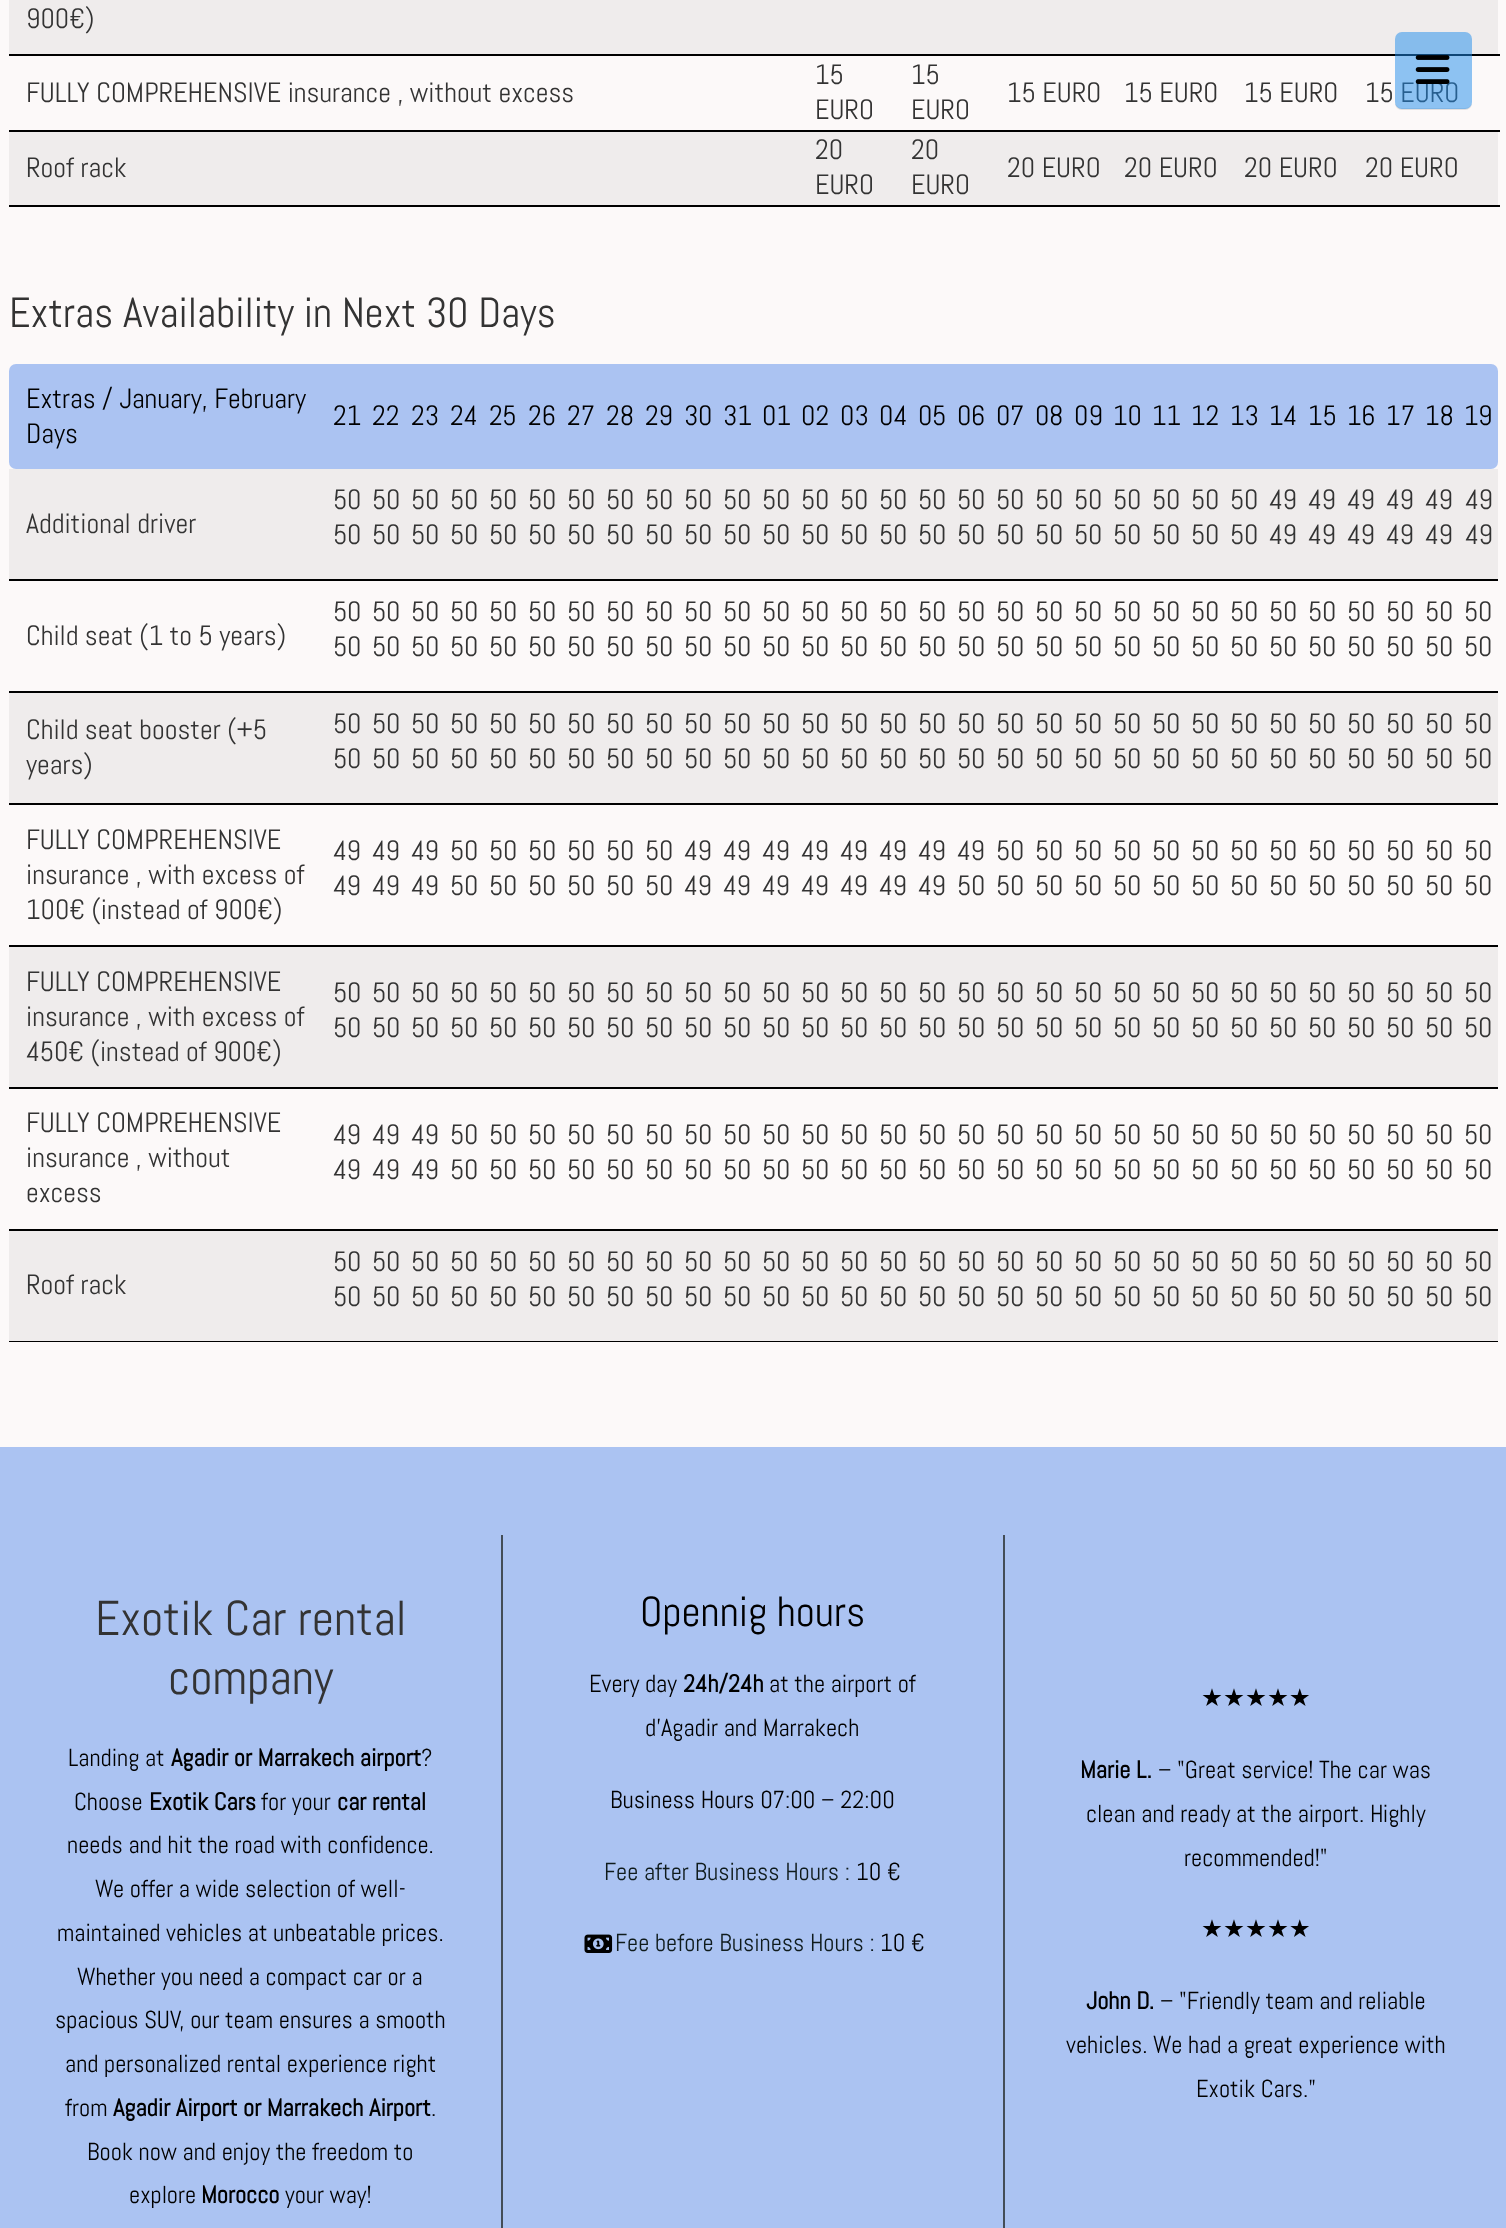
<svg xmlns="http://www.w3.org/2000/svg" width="1506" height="2228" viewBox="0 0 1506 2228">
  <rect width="100%" height="100%" fill="#fcf9f9"/>
  <rect x="9" y="0" width="1489" height="54" fill="#efecec"/>
  <rect x="9" y="54" width="1491" height="2" fill="#000000"/>
  <text x="26" y="28" font-family="Abel" font-size="28" fill="#333333">900€)</text>
  <rect x="9" y="130" width="1491" height="2" fill="#000000"/>
  <text x="26" y="102" font-family="Abel" font-size="28" fill="#333333">FULLY COMPREHENSIVE insurance , without excess</text>
  <text x="815" y="84" font-family="Abel" font-size="28" fill="#333333">15</text>
  <text x="815" y="119" font-family="Abel" font-size="28" fill="#333333">EURO</text>
  <text x="911" y="84" font-family="Abel" font-size="28" fill="#333333">15</text>
  <text x="911" y="119" font-family="Abel" font-size="28" fill="#333333">EURO</text>
  <text x="1007" y="102" font-family="Abel" font-size="28" fill="#333333">15 EURO</text>
  <text x="1124" y="102" font-family="Abel" font-size="28" fill="#333333">15 EURO</text>
  <text x="1244" y="102" font-family="Abel" font-size="28" fill="#333333">15 EURO</text>
  <text x="1365" y="102" font-family="Abel" font-size="28" fill="#333333">15 EURO</text>
  <rect x="9" y="132" width="1489" height="73" fill="#efecec"/>
  <rect x="9" y="205" width="1491" height="2" fill="#000000"/>
  <text x="26" y="177" font-family="Abel" font-size="28" fill="#333333">Roof rack</text>
  <text x="815" y="159" font-family="Abel" font-size="28" fill="#333333">20</text>
  <text x="815" y="194" font-family="Abel" font-size="28" fill="#333333">EURO</text>
  <text x="911" y="159" font-family="Abel" font-size="28" fill="#333333">20</text>
  <text x="911" y="194" font-family="Abel" font-size="28" fill="#333333">EURO</text>
  <text x="1007" y="177" font-family="Abel" font-size="28" fill="#333333">20 EURO</text>
  <text x="1124" y="177" font-family="Abel" font-size="28" fill="#333333">20 EURO</text>
  <text x="1244" y="177" font-family="Abel" font-size="28" fill="#333333">20 EURO</text>
  <text x="1365" y="177" font-family="Abel" font-size="28" fill="#333333">20 EURO</text>
  <text x="9" y="327" font-family="Abel" font-size="42" fill="#333333">Extras Availability in Next 30 Days</text>
  <rect x="9" y="364" width="1489" height="105" rx="7" fill="#abc3f2"/>
  <text x="26" y="408" font-family="Abel" font-size="28" fill="#000000">Extras / January, February</text>
  <text x="26" y="443" font-family="Abel" font-size="28" fill="#000000">Days</text>
  <text x="333" y="425" font-family="Abel" font-size="28" fill="#000000">21</text>
  <text x="372" y="425" font-family="Abel" font-size="28" fill="#000000">22</text>
  <text x="411" y="425" font-family="Abel" font-size="28" fill="#000000">23</text>
  <text x="450" y="425" font-family="Abel" font-size="28" fill="#000000">24</text>
  <text x="489" y="425" font-family="Abel" font-size="28" fill="#000000">25</text>
  <text x="528" y="425" font-family="Abel" font-size="28" fill="#000000">26</text>
  <text x="567" y="425" font-family="Abel" font-size="28" fill="#000000">27</text>
  <text x="606" y="425" font-family="Abel" font-size="28" fill="#000000">28</text>
  <text x="645" y="425" font-family="Abel" font-size="28" fill="#000000">29</text>
  <text x="684" y="425" font-family="Abel" font-size="28" fill="#000000">30</text>
  <text x="723" y="425" font-family="Abel" font-size="28" fill="#000000">31</text>
  <text x="762" y="425" font-family="Abel" font-size="28" fill="#000000">01</text>
  <text x="801" y="425" font-family="Abel" font-size="28" fill="#000000">02</text>
  <text x="840" y="425" font-family="Abel" font-size="28" fill="#000000">03</text>
  <text x="879" y="425" font-family="Abel" font-size="28" fill="#000000">04</text>
  <text x="918" y="425" font-family="Abel" font-size="28" fill="#000000">05</text>
  <text x="957" y="425" font-family="Abel" font-size="28" fill="#000000">06</text>
  <text x="996" y="425" font-family="Abel" font-size="28" fill="#000000">07</text>
  <text x="1035" y="425" font-family="Abel" font-size="28" fill="#000000">08</text>
  <text x="1074" y="425" font-family="Abel" font-size="28" fill="#000000">09</text>
  <text x="1113" y="425" font-family="Abel" font-size="28" fill="#000000">10</text>
  <text x="1152" y="425" font-family="Abel" font-size="28" fill="#000000">11</text>
  <text x="1191" y="425" font-family="Abel" font-size="28" fill="#000000">12</text>
  <text x="1230" y="425" font-family="Abel" font-size="28" fill="#000000">13</text>
  <text x="1269" y="425" font-family="Abel" font-size="28" fill="#000000">14</text>
  <text x="1308" y="425" font-family="Abel" font-size="28" fill="#000000">15</text>
  <text x="1347" y="425" font-family="Abel" font-size="28" fill="#000000">16</text>
  <text x="1386" y="425" font-family="Abel" font-size="28" fill="#000000">17</text>
  <text x="1425" y="425" font-family="Abel" font-size="28" fill="#000000">18</text>
  <text x="1464" y="425" font-family="Abel" font-size="28" fill="#000000">19</text>
  <rect x="9" y="469" width="1489" height="110" fill="#efecec"/>
  <rect x="9" y="579" width="1489" height="2" fill="#000000"/>
  <text x="26" y="533" font-family="Abel" font-size="28" fill="#333333">Additional driver</text>
  <text x="333" y="509" font-family="Abel" font-size="28" fill="#333333">50</text>
  <text x="333" y="544" font-family="Abel" font-size="28" fill="#333333">50</text>
  <text x="372" y="509" font-family="Abel" font-size="28" fill="#333333">50</text>
  <text x="372" y="544" font-family="Abel" font-size="28" fill="#333333">50</text>
  <text x="411" y="509" font-family="Abel" font-size="28" fill="#333333">50</text>
  <text x="411" y="544" font-family="Abel" font-size="28" fill="#333333">50</text>
  <text x="450" y="509" font-family="Abel" font-size="28" fill="#333333">50</text>
  <text x="450" y="544" font-family="Abel" font-size="28" fill="#333333">50</text>
  <text x="489" y="509" font-family="Abel" font-size="28" fill="#333333">50</text>
  <text x="489" y="544" font-family="Abel" font-size="28" fill="#333333">50</text>
  <text x="528" y="509" font-family="Abel" font-size="28" fill="#333333">50</text>
  <text x="528" y="544" font-family="Abel" font-size="28" fill="#333333">50</text>
  <text x="567" y="509" font-family="Abel" font-size="28" fill="#333333">50</text>
  <text x="567" y="544" font-family="Abel" font-size="28" fill="#333333">50</text>
  <text x="606" y="509" font-family="Abel" font-size="28" fill="#333333">50</text>
  <text x="606" y="544" font-family="Abel" font-size="28" fill="#333333">50</text>
  <text x="645" y="509" font-family="Abel" font-size="28" fill="#333333">50</text>
  <text x="645" y="544" font-family="Abel" font-size="28" fill="#333333">50</text>
  <text x="684" y="509" font-family="Abel" font-size="28" fill="#333333">50</text>
  <text x="684" y="544" font-family="Abel" font-size="28" fill="#333333">50</text>
  <text x="723" y="509" font-family="Abel" font-size="28" fill="#333333">50</text>
  <text x="723" y="544" font-family="Abel" font-size="28" fill="#333333">50</text>
  <text x="762" y="509" font-family="Abel" font-size="28" fill="#333333">50</text>
  <text x="762" y="544" font-family="Abel" font-size="28" fill="#333333">50</text>
  <text x="801" y="509" font-family="Abel" font-size="28" fill="#333333">50</text>
  <text x="801" y="544" font-family="Abel" font-size="28" fill="#333333">50</text>
  <text x="840" y="509" font-family="Abel" font-size="28" fill="#333333">50</text>
  <text x="840" y="544" font-family="Abel" font-size="28" fill="#333333">50</text>
  <text x="879" y="509" font-family="Abel" font-size="28" fill="#333333">50</text>
  <text x="879" y="544" font-family="Abel" font-size="28" fill="#333333">50</text>
  <text x="918" y="509" font-family="Abel" font-size="28" fill="#333333">50</text>
  <text x="918" y="544" font-family="Abel" font-size="28" fill="#333333">50</text>
  <text x="957" y="509" font-family="Abel" font-size="28" fill="#333333">50</text>
  <text x="957" y="544" font-family="Abel" font-size="28" fill="#333333">50</text>
  <text x="996" y="509" font-family="Abel" font-size="28" fill="#333333">50</text>
  <text x="996" y="544" font-family="Abel" font-size="28" fill="#333333">50</text>
  <text x="1035" y="509" font-family="Abel" font-size="28" fill="#333333">50</text>
  <text x="1035" y="544" font-family="Abel" font-size="28" fill="#333333">50</text>
  <text x="1074" y="509" font-family="Abel" font-size="28" fill="#333333">50</text>
  <text x="1074" y="544" font-family="Abel" font-size="28" fill="#333333">50</text>
  <text x="1113" y="509" font-family="Abel" font-size="28" fill="#333333">50</text>
  <text x="1113" y="544" font-family="Abel" font-size="28" fill="#333333">50</text>
  <text x="1152" y="509" font-family="Abel" font-size="28" fill="#333333">50</text>
  <text x="1152" y="544" font-family="Abel" font-size="28" fill="#333333">50</text>
  <text x="1191" y="509" font-family="Abel" font-size="28" fill="#333333">50</text>
  <text x="1191" y="544" font-family="Abel" font-size="28" fill="#333333">50</text>
  <text x="1230" y="509" font-family="Abel" font-size="28" fill="#333333">50</text>
  <text x="1230" y="544" font-family="Abel" font-size="28" fill="#333333">50</text>
  <text x="1269" y="509" font-family="Abel" font-size="28" fill="#333333">49</text>
  <text x="1269" y="544" font-family="Abel" font-size="28" fill="#333333">49</text>
  <text x="1308" y="509" font-family="Abel" font-size="28" fill="#333333">49</text>
  <text x="1308" y="544" font-family="Abel" font-size="28" fill="#333333">49</text>
  <text x="1347" y="509" font-family="Abel" font-size="28" fill="#333333">49</text>
  <text x="1347" y="544" font-family="Abel" font-size="28" fill="#333333">49</text>
  <text x="1386" y="509" font-family="Abel" font-size="28" fill="#333333">49</text>
  <text x="1386" y="544" font-family="Abel" font-size="28" fill="#333333">49</text>
  <text x="1425" y="509" font-family="Abel" font-size="28" fill="#333333">49</text>
  <text x="1425" y="544" font-family="Abel" font-size="28" fill="#333333">49</text>
  <text x="1465" y="509" font-family="Abel" font-size="28" fill="#333333">49</text>
  <text x="1465" y="544" font-family="Abel" font-size="28" fill="#333333">49</text>
  <rect x="9" y="691" width="1489" height="2" fill="#000000"/>
  <text x="26" y="645" font-family="Abel" font-size="28" fill="#333333">Child seat (1 to 5 years)</text>
  <text x="333" y="621" font-family="Abel" font-size="28" fill="#333333">50</text>
  <text x="333" y="656" font-family="Abel" font-size="28" fill="#333333">50</text>
  <text x="372" y="621" font-family="Abel" font-size="28" fill="#333333">50</text>
  <text x="372" y="656" font-family="Abel" font-size="28" fill="#333333">50</text>
  <text x="411" y="621" font-family="Abel" font-size="28" fill="#333333">50</text>
  <text x="411" y="656" font-family="Abel" font-size="28" fill="#333333">50</text>
  <text x="450" y="621" font-family="Abel" font-size="28" fill="#333333">50</text>
  <text x="450" y="656" font-family="Abel" font-size="28" fill="#333333">50</text>
  <text x="489" y="621" font-family="Abel" font-size="28" fill="#333333">50</text>
  <text x="489" y="656" font-family="Abel" font-size="28" fill="#333333">50</text>
  <text x="528" y="621" font-family="Abel" font-size="28" fill="#333333">50</text>
  <text x="528" y="656" font-family="Abel" font-size="28" fill="#333333">50</text>
  <text x="567" y="621" font-family="Abel" font-size="28" fill="#333333">50</text>
  <text x="567" y="656" font-family="Abel" font-size="28" fill="#333333">50</text>
  <text x="606" y="621" font-family="Abel" font-size="28" fill="#333333">50</text>
  <text x="606" y="656" font-family="Abel" font-size="28" fill="#333333">50</text>
  <text x="645" y="621" font-family="Abel" font-size="28" fill="#333333">50</text>
  <text x="645" y="656" font-family="Abel" font-size="28" fill="#333333">50</text>
  <text x="684" y="621" font-family="Abel" font-size="28" fill="#333333">50</text>
  <text x="684" y="656" font-family="Abel" font-size="28" fill="#333333">50</text>
  <text x="723" y="621" font-family="Abel" font-size="28" fill="#333333">50</text>
  <text x="723" y="656" font-family="Abel" font-size="28" fill="#333333">50</text>
  <text x="762" y="621" font-family="Abel" font-size="28" fill="#333333">50</text>
  <text x="762" y="656" font-family="Abel" font-size="28" fill="#333333">50</text>
  <text x="801" y="621" font-family="Abel" font-size="28" fill="#333333">50</text>
  <text x="801" y="656" font-family="Abel" font-size="28" fill="#333333">50</text>
  <text x="840" y="621" font-family="Abel" font-size="28" fill="#333333">50</text>
  <text x="840" y="656" font-family="Abel" font-size="28" fill="#333333">50</text>
  <text x="879" y="621" font-family="Abel" font-size="28" fill="#333333">50</text>
  <text x="879" y="656" font-family="Abel" font-size="28" fill="#333333">50</text>
  <text x="918" y="621" font-family="Abel" font-size="28" fill="#333333">50</text>
  <text x="918" y="656" font-family="Abel" font-size="28" fill="#333333">50</text>
  <text x="957" y="621" font-family="Abel" font-size="28" fill="#333333">50</text>
  <text x="957" y="656" font-family="Abel" font-size="28" fill="#333333">50</text>
  <text x="996" y="621" font-family="Abel" font-size="28" fill="#333333">50</text>
  <text x="996" y="656" font-family="Abel" font-size="28" fill="#333333">50</text>
  <text x="1035" y="621" font-family="Abel" font-size="28" fill="#333333">50</text>
  <text x="1035" y="656" font-family="Abel" font-size="28" fill="#333333">50</text>
  <text x="1074" y="621" font-family="Abel" font-size="28" fill="#333333">50</text>
  <text x="1074" y="656" font-family="Abel" font-size="28" fill="#333333">50</text>
  <text x="1113" y="621" font-family="Abel" font-size="28" fill="#333333">50</text>
  <text x="1113" y="656" font-family="Abel" font-size="28" fill="#333333">50</text>
  <text x="1152" y="621" font-family="Abel" font-size="28" fill="#333333">50</text>
  <text x="1152" y="656" font-family="Abel" font-size="28" fill="#333333">50</text>
  <text x="1191" y="621" font-family="Abel" font-size="28" fill="#333333">50</text>
  <text x="1191" y="656" font-family="Abel" font-size="28" fill="#333333">50</text>
  <text x="1230" y="621" font-family="Abel" font-size="28" fill="#333333">50</text>
  <text x="1230" y="656" font-family="Abel" font-size="28" fill="#333333">50</text>
  <text x="1269" y="621" font-family="Abel" font-size="28" fill="#333333">50</text>
  <text x="1269" y="656" font-family="Abel" font-size="28" fill="#333333">50</text>
  <text x="1308" y="621" font-family="Abel" font-size="28" fill="#333333">50</text>
  <text x="1308" y="656" font-family="Abel" font-size="28" fill="#333333">50</text>
  <text x="1347" y="621" font-family="Abel" font-size="28" fill="#333333">50</text>
  <text x="1347" y="656" font-family="Abel" font-size="28" fill="#333333">50</text>
  <text x="1386" y="621" font-family="Abel" font-size="28" fill="#333333">50</text>
  <text x="1386" y="656" font-family="Abel" font-size="28" fill="#333333">50</text>
  <text x="1425" y="621" font-family="Abel" font-size="28" fill="#333333">50</text>
  <text x="1425" y="656" font-family="Abel" font-size="28" fill="#333333">50</text>
  <text x="1464" y="621" font-family="Abel" font-size="28" fill="#333333">50</text>
  <text x="1464" y="656" font-family="Abel" font-size="28" fill="#333333">50</text>
  <rect x="9" y="693" width="1489" height="110" fill="#efecec"/>
  <rect x="9" y="803" width="1489" height="2" fill="#000000"/>
  <text x="26" y="739" font-family="Abel" font-size="28" fill="#333333">Child seat booster (+5</text>
  <text x="26" y="774" font-family="Abel" font-size="28" fill="#333333">years)</text>
  <text x="333" y="733" font-family="Abel" font-size="28" fill="#333333">50</text>
  <text x="333" y="768" font-family="Abel" font-size="28" fill="#333333">50</text>
  <text x="372" y="733" font-family="Abel" font-size="28" fill="#333333">50</text>
  <text x="372" y="768" font-family="Abel" font-size="28" fill="#333333">50</text>
  <text x="411" y="733" font-family="Abel" font-size="28" fill="#333333">50</text>
  <text x="411" y="768" font-family="Abel" font-size="28" fill="#333333">50</text>
  <text x="450" y="733" font-family="Abel" font-size="28" fill="#333333">50</text>
  <text x="450" y="768" font-family="Abel" font-size="28" fill="#333333">50</text>
  <text x="489" y="733" font-family="Abel" font-size="28" fill="#333333">50</text>
  <text x="489" y="768" font-family="Abel" font-size="28" fill="#333333">50</text>
  <text x="528" y="733" font-family="Abel" font-size="28" fill="#333333">50</text>
  <text x="528" y="768" font-family="Abel" font-size="28" fill="#333333">50</text>
  <text x="567" y="733" font-family="Abel" font-size="28" fill="#333333">50</text>
  <text x="567" y="768" font-family="Abel" font-size="28" fill="#333333">50</text>
  <text x="606" y="733" font-family="Abel" font-size="28" fill="#333333">50</text>
  <text x="606" y="768" font-family="Abel" font-size="28" fill="#333333">50</text>
  <text x="645" y="733" font-family="Abel" font-size="28" fill="#333333">50</text>
  <text x="645" y="768" font-family="Abel" font-size="28" fill="#333333">50</text>
  <text x="684" y="733" font-family="Abel" font-size="28" fill="#333333">50</text>
  <text x="684" y="768" font-family="Abel" font-size="28" fill="#333333">50</text>
  <text x="723" y="733" font-family="Abel" font-size="28" fill="#333333">50</text>
  <text x="723" y="768" font-family="Abel" font-size="28" fill="#333333">50</text>
  <text x="762" y="733" font-family="Abel" font-size="28" fill="#333333">50</text>
  <text x="762" y="768" font-family="Abel" font-size="28" fill="#333333">50</text>
  <text x="801" y="733" font-family="Abel" font-size="28" fill="#333333">50</text>
  <text x="801" y="768" font-family="Abel" font-size="28" fill="#333333">50</text>
  <text x="840" y="733" font-family="Abel" font-size="28" fill="#333333">50</text>
  <text x="840" y="768" font-family="Abel" font-size="28" fill="#333333">50</text>
  <text x="879" y="733" font-family="Abel" font-size="28" fill="#333333">50</text>
  <text x="879" y="768" font-family="Abel" font-size="28" fill="#333333">50</text>
  <text x="918" y="733" font-family="Abel" font-size="28" fill="#333333">50</text>
  <text x="918" y="768" font-family="Abel" font-size="28" fill="#333333">50</text>
  <text x="957" y="733" font-family="Abel" font-size="28" fill="#333333">50</text>
  <text x="957" y="768" font-family="Abel" font-size="28" fill="#333333">50</text>
  <text x="996" y="733" font-family="Abel" font-size="28" fill="#333333">50</text>
  <text x="996" y="768" font-family="Abel" font-size="28" fill="#333333">50</text>
  <text x="1035" y="733" font-family="Abel" font-size="28" fill="#333333">50</text>
  <text x="1035" y="768" font-family="Abel" font-size="28" fill="#333333">50</text>
  <text x="1074" y="733" font-family="Abel" font-size="28" fill="#333333">50</text>
  <text x="1074" y="768" font-family="Abel" font-size="28" fill="#333333">50</text>
  <text x="1113" y="733" font-family="Abel" font-size="28" fill="#333333">50</text>
  <text x="1113" y="768" font-family="Abel" font-size="28" fill="#333333">50</text>
  <text x="1152" y="733" font-family="Abel" font-size="28" fill="#333333">50</text>
  <text x="1152" y="768" font-family="Abel" font-size="28" fill="#333333">50</text>
  <text x="1191" y="733" font-family="Abel" font-size="28" fill="#333333">50</text>
  <text x="1191" y="768" font-family="Abel" font-size="28" fill="#333333">50</text>
  <text x="1230" y="733" font-family="Abel" font-size="28" fill="#333333">50</text>
  <text x="1230" y="768" font-family="Abel" font-size="28" fill="#333333">50</text>
  <text x="1269" y="733" font-family="Abel" font-size="28" fill="#333333">50</text>
  <text x="1269" y="768" font-family="Abel" font-size="28" fill="#333333">50</text>
  <text x="1308" y="733" font-family="Abel" font-size="28" fill="#333333">50</text>
  <text x="1308" y="768" font-family="Abel" font-size="28" fill="#333333">50</text>
  <text x="1347" y="733" font-family="Abel" font-size="28" fill="#333333">50</text>
  <text x="1347" y="768" font-family="Abel" font-size="28" fill="#333333">50</text>
  <text x="1386" y="733" font-family="Abel" font-size="28" fill="#333333">50</text>
  <text x="1386" y="768" font-family="Abel" font-size="28" fill="#333333">50</text>
  <text x="1425" y="733" font-family="Abel" font-size="28" fill="#333333">50</text>
  <text x="1425" y="768" font-family="Abel" font-size="28" fill="#333333">50</text>
  <text x="1464" y="733" font-family="Abel" font-size="28" fill="#333333">50</text>
  <text x="1464" y="768" font-family="Abel" font-size="28" fill="#333333">50</text>
  <rect x="9" y="945" width="1489" height="2" fill="#000000"/>
  <text x="26" y="849" font-family="Abel" font-size="28" fill="#333333">FULLY COMPREHENSIVE</text>
  <text x="26" y="884" font-family="Abel" font-size="28" fill="#333333">insurance , with excess of</text>
  <text x="26" y="919" font-family="Abel" font-size="28" fill="#333333">100€ (instead of 900€)</text>
  <text x="333" y="860" font-family="Abel" font-size="28" fill="#333333">49</text>
  <text x="333" y="895" font-family="Abel" font-size="28" fill="#333333">49</text>
  <text x="372" y="860" font-family="Abel" font-size="28" fill="#333333">49</text>
  <text x="372" y="895" font-family="Abel" font-size="28" fill="#333333">49</text>
  <text x="411" y="860" font-family="Abel" font-size="28" fill="#333333">49</text>
  <text x="411" y="895" font-family="Abel" font-size="28" fill="#333333">49</text>
  <text x="450" y="860" font-family="Abel" font-size="28" fill="#333333">50</text>
  <text x="450" y="895" font-family="Abel" font-size="28" fill="#333333">50</text>
  <text x="489" y="860" font-family="Abel" font-size="28" fill="#333333">50</text>
  <text x="489" y="895" font-family="Abel" font-size="28" fill="#333333">50</text>
  <text x="528" y="860" font-family="Abel" font-size="28" fill="#333333">50</text>
  <text x="528" y="895" font-family="Abel" font-size="28" fill="#333333">50</text>
  <text x="567" y="860" font-family="Abel" font-size="28" fill="#333333">50</text>
  <text x="567" y="895" font-family="Abel" font-size="28" fill="#333333">50</text>
  <text x="606" y="860" font-family="Abel" font-size="28" fill="#333333">50</text>
  <text x="606" y="895" font-family="Abel" font-size="28" fill="#333333">50</text>
  <text x="645" y="860" font-family="Abel" font-size="28" fill="#333333">50</text>
  <text x="645" y="895" font-family="Abel" font-size="28" fill="#333333">50</text>
  <text x="684" y="860" font-family="Abel" font-size="28" fill="#333333">49</text>
  <text x="684" y="895" font-family="Abel" font-size="28" fill="#333333">49</text>
  <text x="723" y="860" font-family="Abel" font-size="28" fill="#333333">49</text>
  <text x="723" y="895" font-family="Abel" font-size="28" fill="#333333">49</text>
  <text x="762" y="860" font-family="Abel" font-size="28" fill="#333333">49</text>
  <text x="762" y="895" font-family="Abel" font-size="28" fill="#333333">49</text>
  <text x="801" y="860" font-family="Abel" font-size="28" fill="#333333">49</text>
  <text x="801" y="895" font-family="Abel" font-size="28" fill="#333333">49</text>
  <text x="840" y="860" font-family="Abel" font-size="28" fill="#333333">49</text>
  <text x="840" y="895" font-family="Abel" font-size="28" fill="#333333">49</text>
  <text x="879" y="860" font-family="Abel" font-size="28" fill="#333333">49</text>
  <text x="879" y="895" font-family="Abel" font-size="28" fill="#333333">49</text>
  <text x="918" y="860" font-family="Abel" font-size="28" fill="#333333">49</text>
  <text x="918" y="895" font-family="Abel" font-size="28" fill="#333333">49</text>
  <text x="957" y="860" font-family="Abel" font-size="28" fill="#333333">49</text>
  <text x="957" y="895" font-family="Abel" font-size="28" fill="#333333">50</text>
  <text x="996" y="860" font-family="Abel" font-size="28" fill="#333333">50</text>
  <text x="996" y="895" font-family="Abel" font-size="28" fill="#333333">50</text>
  <text x="1035" y="860" font-family="Abel" font-size="28" fill="#333333">50</text>
  <text x="1035" y="895" font-family="Abel" font-size="28" fill="#333333">50</text>
  <text x="1074" y="860" font-family="Abel" font-size="28" fill="#333333">50</text>
  <text x="1074" y="895" font-family="Abel" font-size="28" fill="#333333">50</text>
  <text x="1113" y="860" font-family="Abel" font-size="28" fill="#333333">50</text>
  <text x="1113" y="895" font-family="Abel" font-size="28" fill="#333333">50</text>
  <text x="1152" y="860" font-family="Abel" font-size="28" fill="#333333">50</text>
  <text x="1152" y="895" font-family="Abel" font-size="28" fill="#333333">50</text>
  <text x="1191" y="860" font-family="Abel" font-size="28" fill="#333333">50</text>
  <text x="1191" y="895" font-family="Abel" font-size="28" fill="#333333">50</text>
  <text x="1230" y="860" font-family="Abel" font-size="28" fill="#333333">50</text>
  <text x="1230" y="895" font-family="Abel" font-size="28" fill="#333333">50</text>
  <text x="1269" y="860" font-family="Abel" font-size="28" fill="#333333">50</text>
  <text x="1269" y="895" font-family="Abel" font-size="28" fill="#333333">50</text>
  <text x="1308" y="860" font-family="Abel" font-size="28" fill="#333333">50</text>
  <text x="1308" y="895" font-family="Abel" font-size="28" fill="#333333">50</text>
  <text x="1347" y="860" font-family="Abel" font-size="28" fill="#333333">50</text>
  <text x="1347" y="895" font-family="Abel" font-size="28" fill="#333333">50</text>
  <text x="1386" y="860" font-family="Abel" font-size="28" fill="#333333">50</text>
  <text x="1386" y="895" font-family="Abel" font-size="28" fill="#333333">50</text>
  <text x="1425" y="860" font-family="Abel" font-size="28" fill="#333333">50</text>
  <text x="1425" y="895" font-family="Abel" font-size="28" fill="#333333">50</text>
  <text x="1464" y="860" font-family="Abel" font-size="28" fill="#333333">50</text>
  <text x="1464" y="895" font-family="Abel" font-size="28" fill="#333333">50</text>
  <rect x="9" y="947" width="1489" height="140" fill="#efecec"/>
  <rect x="9" y="1087" width="1489" height="2" fill="#000000"/>
  <text x="26" y="991" font-family="Abel" font-size="28" fill="#333333">FULLY COMPREHENSIVE</text>
  <text x="26" y="1026" font-family="Abel" font-size="28" fill="#333333">insurance , with excess of</text>
  <text x="26" y="1061" font-family="Abel" font-size="28" fill="#333333">450€ (instead of 900€)</text>
  <text x="333" y="1002" font-family="Abel" font-size="28" fill="#333333">50</text>
  <text x="333" y="1037" font-family="Abel" font-size="28" fill="#333333">50</text>
  <text x="372" y="1002" font-family="Abel" font-size="28" fill="#333333">50</text>
  <text x="372" y="1037" font-family="Abel" font-size="28" fill="#333333">50</text>
  <text x="411" y="1002" font-family="Abel" font-size="28" fill="#333333">50</text>
  <text x="411" y="1037" font-family="Abel" font-size="28" fill="#333333">50</text>
  <text x="450" y="1002" font-family="Abel" font-size="28" fill="#333333">50</text>
  <text x="450" y="1037" font-family="Abel" font-size="28" fill="#333333">50</text>
  <text x="489" y="1002" font-family="Abel" font-size="28" fill="#333333">50</text>
  <text x="489" y="1037" font-family="Abel" font-size="28" fill="#333333">50</text>
  <text x="528" y="1002" font-family="Abel" font-size="28" fill="#333333">50</text>
  <text x="528" y="1037" font-family="Abel" font-size="28" fill="#333333">50</text>
  <text x="567" y="1002" font-family="Abel" font-size="28" fill="#333333">50</text>
  <text x="567" y="1037" font-family="Abel" font-size="28" fill="#333333">50</text>
  <text x="606" y="1002" font-family="Abel" font-size="28" fill="#333333">50</text>
  <text x="606" y="1037" font-family="Abel" font-size="28" fill="#333333">50</text>
  <text x="645" y="1002" font-family="Abel" font-size="28" fill="#333333">50</text>
  <text x="645" y="1037" font-family="Abel" font-size="28" fill="#333333">50</text>
  <text x="684" y="1002" font-family="Abel" font-size="28" fill="#333333">50</text>
  <text x="684" y="1037" font-family="Abel" font-size="28" fill="#333333">50</text>
  <text x="723" y="1002" font-family="Abel" font-size="28" fill="#333333">50</text>
  <text x="723" y="1037" font-family="Abel" font-size="28" fill="#333333">50</text>
  <text x="762" y="1002" font-family="Abel" font-size="28" fill="#333333">50</text>
  <text x="762" y="1037" font-family="Abel" font-size="28" fill="#333333">50</text>
  <text x="801" y="1002" font-family="Abel" font-size="28" fill="#333333">50</text>
  <text x="801" y="1037" font-family="Abel" font-size="28" fill="#333333">50</text>
  <text x="840" y="1002" font-family="Abel" font-size="28" fill="#333333">50</text>
  <text x="840" y="1037" font-family="Abel" font-size="28" fill="#333333">50</text>
  <text x="879" y="1002" font-family="Abel" font-size="28" fill="#333333">50</text>
  <text x="879" y="1037" font-family="Abel" font-size="28" fill="#333333">50</text>
  <text x="918" y="1002" font-family="Abel" font-size="28" fill="#333333">50</text>
  <text x="918" y="1037" font-family="Abel" font-size="28" fill="#333333">50</text>
  <text x="957" y="1002" font-family="Abel" font-size="28" fill="#333333">50</text>
  <text x="957" y="1037" font-family="Abel" font-size="28" fill="#333333">50</text>
  <text x="996" y="1002" font-family="Abel" font-size="28" fill="#333333">50</text>
  <text x="996" y="1037" font-family="Abel" font-size="28" fill="#333333">50</text>
  <text x="1035" y="1002" font-family="Abel" font-size="28" fill="#333333">50</text>
  <text x="1035" y="1037" font-family="Abel" font-size="28" fill="#333333">50</text>
  <text x="1074" y="1002" font-family="Abel" font-size="28" fill="#333333">50</text>
  <text x="1074" y="1037" font-family="Abel" font-size="28" fill="#333333">50</text>
  <text x="1113" y="1002" font-family="Abel" font-size="28" fill="#333333">50</text>
  <text x="1113" y="1037" font-family="Abel" font-size="28" fill="#333333">50</text>
  <text x="1152" y="1002" font-family="Abel" font-size="28" fill="#333333">50</text>
  <text x="1152" y="1037" font-family="Abel" font-size="28" fill="#333333">50</text>
  <text x="1191" y="1002" font-family="Abel" font-size="28" fill="#333333">50</text>
  <text x="1191" y="1037" font-family="Abel" font-size="28" fill="#333333">50</text>
  <text x="1230" y="1002" font-family="Abel" font-size="28" fill="#333333">50</text>
  <text x="1230" y="1037" font-family="Abel" font-size="28" fill="#333333">50</text>
  <text x="1269" y="1002" font-family="Abel" font-size="28" fill="#333333">50</text>
  <text x="1269" y="1037" font-family="Abel" font-size="28" fill="#333333">50</text>
  <text x="1308" y="1002" font-family="Abel" font-size="28" fill="#333333">50</text>
  <text x="1308" y="1037" font-family="Abel" font-size="28" fill="#333333">50</text>
  <text x="1347" y="1002" font-family="Abel" font-size="28" fill="#333333">50</text>
  <text x="1347" y="1037" font-family="Abel" font-size="28" fill="#333333">50</text>
  <text x="1386" y="1002" font-family="Abel" font-size="28" fill="#333333">50</text>
  <text x="1386" y="1037" font-family="Abel" font-size="28" fill="#333333">50</text>
  <text x="1425" y="1002" font-family="Abel" font-size="28" fill="#333333">50</text>
  <text x="1425" y="1037" font-family="Abel" font-size="28" fill="#333333">50</text>
  <text x="1464" y="1002" font-family="Abel" font-size="28" fill="#333333">50</text>
  <text x="1464" y="1037" font-family="Abel" font-size="28" fill="#333333">50</text>
  <rect x="9" y="1229" width="1489" height="2" fill="#000000"/>
  <text x="26" y="1132" font-family="Abel" font-size="28" fill="#333333">FULLY COMPREHENSIVE</text>
  <text x="26" y="1167" font-family="Abel" font-size="28" fill="#333333">insurance , without</text>
  <text x="26" y="1202" font-family="Abel" font-size="28" fill="#333333">excess</text>
  <text x="333" y="1144" font-family="Abel" font-size="28" fill="#333333">49</text>
  <text x="333" y="1179" font-family="Abel" font-size="28" fill="#333333">49</text>
  <text x="372" y="1144" font-family="Abel" font-size="28" fill="#333333">49</text>
  <text x="372" y="1179" font-family="Abel" font-size="28" fill="#333333">49</text>
  <text x="411" y="1144" font-family="Abel" font-size="28" fill="#333333">49</text>
  <text x="411" y="1179" font-family="Abel" font-size="28" fill="#333333">49</text>
  <text x="450" y="1144" font-family="Abel" font-size="28" fill="#333333">50</text>
  <text x="450" y="1179" font-family="Abel" font-size="28" fill="#333333">50</text>
  <text x="489" y="1144" font-family="Abel" font-size="28" fill="#333333">50</text>
  <text x="489" y="1179" font-family="Abel" font-size="28" fill="#333333">50</text>
  <text x="528" y="1144" font-family="Abel" font-size="28" fill="#333333">50</text>
  <text x="528" y="1179" font-family="Abel" font-size="28" fill="#333333">50</text>
  <text x="567" y="1144" font-family="Abel" font-size="28" fill="#333333">50</text>
  <text x="567" y="1179" font-family="Abel" font-size="28" fill="#333333">50</text>
  <text x="606" y="1144" font-family="Abel" font-size="28" fill="#333333">50</text>
  <text x="606" y="1179" font-family="Abel" font-size="28" fill="#333333">50</text>
  <text x="645" y="1144" font-family="Abel" font-size="28" fill="#333333">50</text>
  <text x="645" y="1179" font-family="Abel" font-size="28" fill="#333333">50</text>
  <text x="684" y="1144" font-family="Abel" font-size="28" fill="#333333">50</text>
  <text x="684" y="1179" font-family="Abel" font-size="28" fill="#333333">50</text>
  <text x="723" y="1144" font-family="Abel" font-size="28" fill="#333333">50</text>
  <text x="723" y="1179" font-family="Abel" font-size="28" fill="#333333">50</text>
  <text x="762" y="1144" font-family="Abel" font-size="28" fill="#333333">50</text>
  <text x="762" y="1179" font-family="Abel" font-size="28" fill="#333333">50</text>
  <text x="801" y="1144" font-family="Abel" font-size="28" fill="#333333">50</text>
  <text x="801" y="1179" font-family="Abel" font-size="28" fill="#333333">50</text>
  <text x="840" y="1144" font-family="Abel" font-size="28" fill="#333333">50</text>
  <text x="840" y="1179" font-family="Abel" font-size="28" fill="#333333">50</text>
  <text x="879" y="1144" font-family="Abel" font-size="28" fill="#333333">50</text>
  <text x="879" y="1179" font-family="Abel" font-size="28" fill="#333333">50</text>
  <text x="918" y="1144" font-family="Abel" font-size="28" fill="#333333">50</text>
  <text x="918" y="1179" font-family="Abel" font-size="28" fill="#333333">50</text>
  <text x="957" y="1144" font-family="Abel" font-size="28" fill="#333333">50</text>
  <text x="957" y="1179" font-family="Abel" font-size="28" fill="#333333">50</text>
  <text x="996" y="1144" font-family="Abel" font-size="28" fill="#333333">50</text>
  <text x="996" y="1179" font-family="Abel" font-size="28" fill="#333333">50</text>
  <text x="1035" y="1144" font-family="Abel" font-size="28" fill="#333333">50</text>
  <text x="1035" y="1179" font-family="Abel" font-size="28" fill="#333333">50</text>
  <text x="1074" y="1144" font-family="Abel" font-size="28" fill="#333333">50</text>
  <text x="1074" y="1179" font-family="Abel" font-size="28" fill="#333333">50</text>
  <text x="1113" y="1144" font-family="Abel" font-size="28" fill="#333333">50</text>
  <text x="1113" y="1179" font-family="Abel" font-size="28" fill="#333333">50</text>
  <text x="1152" y="1144" font-family="Abel" font-size="28" fill="#333333">50</text>
  <text x="1152" y="1179" font-family="Abel" font-size="28" fill="#333333">50</text>
  <text x="1191" y="1144" font-family="Abel" font-size="28" fill="#333333">50</text>
  <text x="1191" y="1179" font-family="Abel" font-size="28" fill="#333333">50</text>
  <text x="1230" y="1144" font-family="Abel" font-size="28" fill="#333333">50</text>
  <text x="1230" y="1179" font-family="Abel" font-size="28" fill="#333333">50</text>
  <text x="1269" y="1144" font-family="Abel" font-size="28" fill="#333333">50</text>
  <text x="1269" y="1179" font-family="Abel" font-size="28" fill="#333333">50</text>
  <text x="1308" y="1144" font-family="Abel" font-size="28" fill="#333333">50</text>
  <text x="1308" y="1179" font-family="Abel" font-size="28" fill="#333333">50</text>
  <text x="1347" y="1144" font-family="Abel" font-size="28" fill="#333333">50</text>
  <text x="1347" y="1179" font-family="Abel" font-size="28" fill="#333333">50</text>
  <text x="1386" y="1144" font-family="Abel" font-size="28" fill="#333333">50</text>
  <text x="1386" y="1179" font-family="Abel" font-size="28" fill="#333333">50</text>
  <text x="1425" y="1144" font-family="Abel" font-size="28" fill="#333333">50</text>
  <text x="1425" y="1179" font-family="Abel" font-size="28" fill="#333333">50</text>
  <text x="1464" y="1144" font-family="Abel" font-size="28" fill="#333333">50</text>
  <text x="1464" y="1179" font-family="Abel" font-size="28" fill="#333333">50</text>
  <rect x="9" y="1231" width="1489" height="110" fill="#efecec"/>
  <rect x="9" y="1341" width="1489" height="1" fill="#000000"/>
  <text x="26" y="1294" font-family="Abel" font-size="28" fill="#333333">Roof rack</text>
  <text x="333" y="1271" font-family="Abel" font-size="28" fill="#333333">50</text>
  <text x="333" y="1306" font-family="Abel" font-size="28" fill="#333333">50</text>
  <text x="372" y="1271" font-family="Abel" font-size="28" fill="#333333">50</text>
  <text x="372" y="1306" font-family="Abel" font-size="28" fill="#333333">50</text>
  <text x="411" y="1271" font-family="Abel" font-size="28" fill="#333333">50</text>
  <text x="411" y="1306" font-family="Abel" font-size="28" fill="#333333">50</text>
  <text x="450" y="1271" font-family="Abel" font-size="28" fill="#333333">50</text>
  <text x="450" y="1306" font-family="Abel" font-size="28" fill="#333333">50</text>
  <text x="489" y="1271" font-family="Abel" font-size="28" fill="#333333">50</text>
  <text x="489" y="1306" font-family="Abel" font-size="28" fill="#333333">50</text>
  <text x="528" y="1271" font-family="Abel" font-size="28" fill="#333333">50</text>
  <text x="528" y="1306" font-family="Abel" font-size="28" fill="#333333">50</text>
  <text x="567" y="1271" font-family="Abel" font-size="28" fill="#333333">50</text>
  <text x="567" y="1306" font-family="Abel" font-size="28" fill="#333333">50</text>
  <text x="606" y="1271" font-family="Abel" font-size="28" fill="#333333">50</text>
  <text x="606" y="1306" font-family="Abel" font-size="28" fill="#333333">50</text>
  <text x="645" y="1271" font-family="Abel" font-size="28" fill="#333333">50</text>
  <text x="645" y="1306" font-family="Abel" font-size="28" fill="#333333">50</text>
  <text x="684" y="1271" font-family="Abel" font-size="28" fill="#333333">50</text>
  <text x="684" y="1306" font-family="Abel" font-size="28" fill="#333333">50</text>
  <text x="723" y="1271" font-family="Abel" font-size="28" fill="#333333">50</text>
  <text x="723" y="1306" font-family="Abel" font-size="28" fill="#333333">50</text>
  <text x="762" y="1271" font-family="Abel" font-size="28" fill="#333333">50</text>
  <text x="762" y="1306" font-family="Abel" font-size="28" fill="#333333">50</text>
  <text x="801" y="1271" font-family="Abel" font-size="28" fill="#333333">50</text>
  <text x="801" y="1306" font-family="Abel" font-size="28" fill="#333333">50</text>
  <text x="840" y="1271" font-family="Abel" font-size="28" fill="#333333">50</text>
  <text x="840" y="1306" font-family="Abel" font-size="28" fill="#333333">50</text>
  <text x="879" y="1271" font-family="Abel" font-size="28" fill="#333333">50</text>
  <text x="879" y="1306" font-family="Abel" font-size="28" fill="#333333">50</text>
  <text x="918" y="1271" font-family="Abel" font-size="28" fill="#333333">50</text>
  <text x="918" y="1306" font-family="Abel" font-size="28" fill="#333333">50</text>
  <text x="957" y="1271" font-family="Abel" font-size="28" fill="#333333">50</text>
  <text x="957" y="1306" font-family="Abel" font-size="28" fill="#333333">50</text>
  <text x="996" y="1271" font-family="Abel" font-size="28" fill="#333333">50</text>
  <text x="996" y="1306" font-family="Abel" font-size="28" fill="#333333">50</text>
  <text x="1035" y="1271" font-family="Abel" font-size="28" fill="#333333">50</text>
  <text x="1035" y="1306" font-family="Abel" font-size="28" fill="#333333">50</text>
  <text x="1074" y="1271" font-family="Abel" font-size="28" fill="#333333">50</text>
  <text x="1074" y="1306" font-family="Abel" font-size="28" fill="#333333">50</text>
  <text x="1113" y="1271" font-family="Abel" font-size="28" fill="#333333">50</text>
  <text x="1113" y="1306" font-family="Abel" font-size="28" fill="#333333">50</text>
  <text x="1152" y="1271" font-family="Abel" font-size="28" fill="#333333">50</text>
  <text x="1152" y="1306" font-family="Abel" font-size="28" fill="#333333">50</text>
  <text x="1191" y="1271" font-family="Abel" font-size="28" fill="#333333">50</text>
  <text x="1191" y="1306" font-family="Abel" font-size="28" fill="#333333">50</text>
  <text x="1230" y="1271" font-family="Abel" font-size="28" fill="#333333">50</text>
  <text x="1230" y="1306" font-family="Abel" font-size="28" fill="#333333">50</text>
  <text x="1269" y="1271" font-family="Abel" font-size="28" fill="#333333">50</text>
  <text x="1269" y="1306" font-family="Abel" font-size="28" fill="#333333">50</text>
  <text x="1308" y="1271" font-family="Abel" font-size="28" fill="#333333">50</text>
  <text x="1308" y="1306" font-family="Abel" font-size="28" fill="#333333">50</text>
  <text x="1347" y="1271" font-family="Abel" font-size="28" fill="#333333">50</text>
  <text x="1347" y="1306" font-family="Abel" font-size="28" fill="#333333">50</text>
  <text x="1386" y="1271" font-family="Abel" font-size="28" fill="#333333">50</text>
  <text x="1386" y="1306" font-family="Abel" font-size="28" fill="#333333">50</text>
  <text x="1425" y="1271" font-family="Abel" font-size="28" fill="#333333">50</text>
  <text x="1425" y="1306" font-family="Abel" font-size="28" fill="#333333">50</text>
  <text x="1464" y="1271" font-family="Abel" font-size="28" fill="#333333">50</text>
  <text x="1464" y="1306" font-family="Abel" font-size="28" fill="#333333">50</text>
  <path d="M1395 103C1395 107 1398 110 1402 110H1465C1469 110 1472 107 1472 103V38V102C1472 105 1469 108 1465 108H1402C1399 108 1396 106 1395 103Z" fill="#e3e0e0"/>
  <rect x="1395" y="32" width="77" height="77" rx="7" fill="#1d8beb" fill-opacity="0.5"/>
  <image x="1415" y="55" width="35" height="29" href="img1.png"/>
  <rect x="0" y="1447" width="1506" height="781" fill="#abc3f2"/>
  <rect x="501" y="1535" width="2" height="693" fill="#434d57"/>
  <text x="95" y="1635" font-family="Abel" font-size="49" fill="#333333">Exotik Car rental</text>
  <text x="168" y="1694" font-family="Abel" font-size="49" fill="#333333">company</text>
  <text x="68" y="1766" font-family="Abel" font-size="24.5" fill="#000000">Landing at</text>
  <text x="171" y="1766" font-family="Abel" font-size="24.5" font-weight="bold" fill="#000000">Agadir or Marrakech airport</text>
  <text x="421" y="1766" font-family="Abel" font-size="24.5" fill="#000000">?</text>
  <text x="74" y="1810" font-family="Abel" font-size="24.5" fill="#000000">Choose</text>
  <text x="149" y="1810" font-family="Abel" font-size="24.5" font-weight="bold" fill="#000000">Exotik Cars</text>
  <text x="261" y="1810" font-family="Abel" font-size="24.5" fill="#000000">for your</text>
  <text x="337" y="1810" font-family="Abel" font-size="24.5" font-weight="bold" fill="#000000">car rental</text>
  <text x="67" y="1853" font-family="Abel" font-size="24.5" fill="#000000">needs and hit the road with confidence.</text>
  <text x="95" y="1897" font-family="Abel" font-size="24.5" fill="#000000">We offer a wide selection of well-</text>
  <text x="57" y="1941" font-family="Abel" font-size="24.5" fill="#000000">maintained vehicles at unbeatable prices.</text>
  <text x="77" y="1985" font-family="Abel" font-size="24.5" fill="#000000">Whether you need a compact car or a</text>
  <text x="55" y="2028" font-family="Abel" font-size="24.5" fill="#000000">spacious SUV, our team ensures a smooth</text>
  <text x="65" y="2072" font-family="Abel" font-size="24.5" fill="#000000">and personalized rental experience right</text>
  <text x="65" y="2116" font-family="Abel" font-size="24.5" fill="#000000">from</text>
  <text x="113" y="2116" font-family="Abel" font-size="24.5" font-weight="bold" fill="#000000">Agadir Airport or Marrakech Airport</text>
  <text x="431" y="2116" font-family="Abel" font-size="24.5" fill="#000000">.</text>
  <text x="87" y="2160" font-family="Abel" font-size="24.5" fill="#000000">Book now and enjoy the freedom to</text>
  <text x="129" y="2203" font-family="Abel" font-size="24.5" fill="#000000">explore</text>
  <text x="201" y="2203" font-family="Abel" font-size="24.5" font-weight="bold" fill="#000000">Morocco</text>
  <text x="285" y="2203" font-family="Abel" font-size="24.5" fill="#000000">your way!</text>
  <rect x="1003" y="1535" width="2" height="693" fill="#434d57"/>
  <text x="640" y="1626" font-family="Abel" font-size="42" fill="#000000">Opennig hours</text>
  <text x="589" y="1692" font-family="Abel" font-size="24.5" fill="#000000">Every day</text>
  <text x="683" y="1692" font-family="Abel" font-size="24.5" font-weight="bold" fill="#000000">24h/24h</text>
  <text x="769" y="1692" font-family="Abel" font-size="24.5" fill="#000000">at the airport of</text>
  <text x="645" y="1736" font-family="Abel" font-size="24.5" fill="#000000">d’Agadir and Marrakech</text>
  <text x="610" y="1808" font-family="Abel" font-size="24.5" fill="#000000">Business Hours 07:00 – 22:00</text>
  <text x="604" y="1880" font-family="Abel" font-size="24.5" fill="#0f1b1c">Fee after Business Hours :</text>
  <text x="856" y="1880" font-family="Abel" font-size="24.5" fill="#000000">10 €</text>
  <image x="584" y="1934" width="29" height="19" href="img2.png"/>
  <text x="615" y="1951" font-family="Abel" font-size="24.5" fill="#0f1b1c">Fee before Business Hours :</text>
  <text x="880" y="1951" font-family="Abel" font-size="24.5" fill="#000000">10 €</text>
  <text x="1201" y="1706" font-family="DejaVu Sans" font-size="24.5" fill="#000000">★★★★★</text>
  <text x="1080" y="1778" font-family="Abel" font-size="24.5" font-weight="bold" fill="#000000">Marie L.</text>
  <text x="1158" y="1778" font-family="Abel" font-size="24.5" fill="#000000">– "Great service! The car was</text>
  <text x="1086" y="1822" font-family="Abel" font-size="24.5" fill="#000000">clean and ready at the airport. Highly</text>
  <text x="1184" y="1866" font-family="Abel" font-size="24.5" fill="#000000">recommended!"</text>
  <text x="1201" y="1937" font-family="DejaVu Sans" font-size="24.5" fill="#000000">★★★★★</text>
  <text x="1086" y="2009" font-family="Abel" font-size="24.5" font-weight="bold" fill="#000000">John D.</text>
  <text x="1160" y="2009" font-family="Abel" font-size="24.5" fill="#000000">– "Friendly team and reliable</text>
  <text x="1066" y="2053" font-family="Abel" font-size="24.5" fill="#000000">vehicles. We had a great experience with</text>
  <text x="1196" y="2097" font-family="Abel" font-size="24.5" fill="#000000">Exotik Cars."</text>
</svg>
